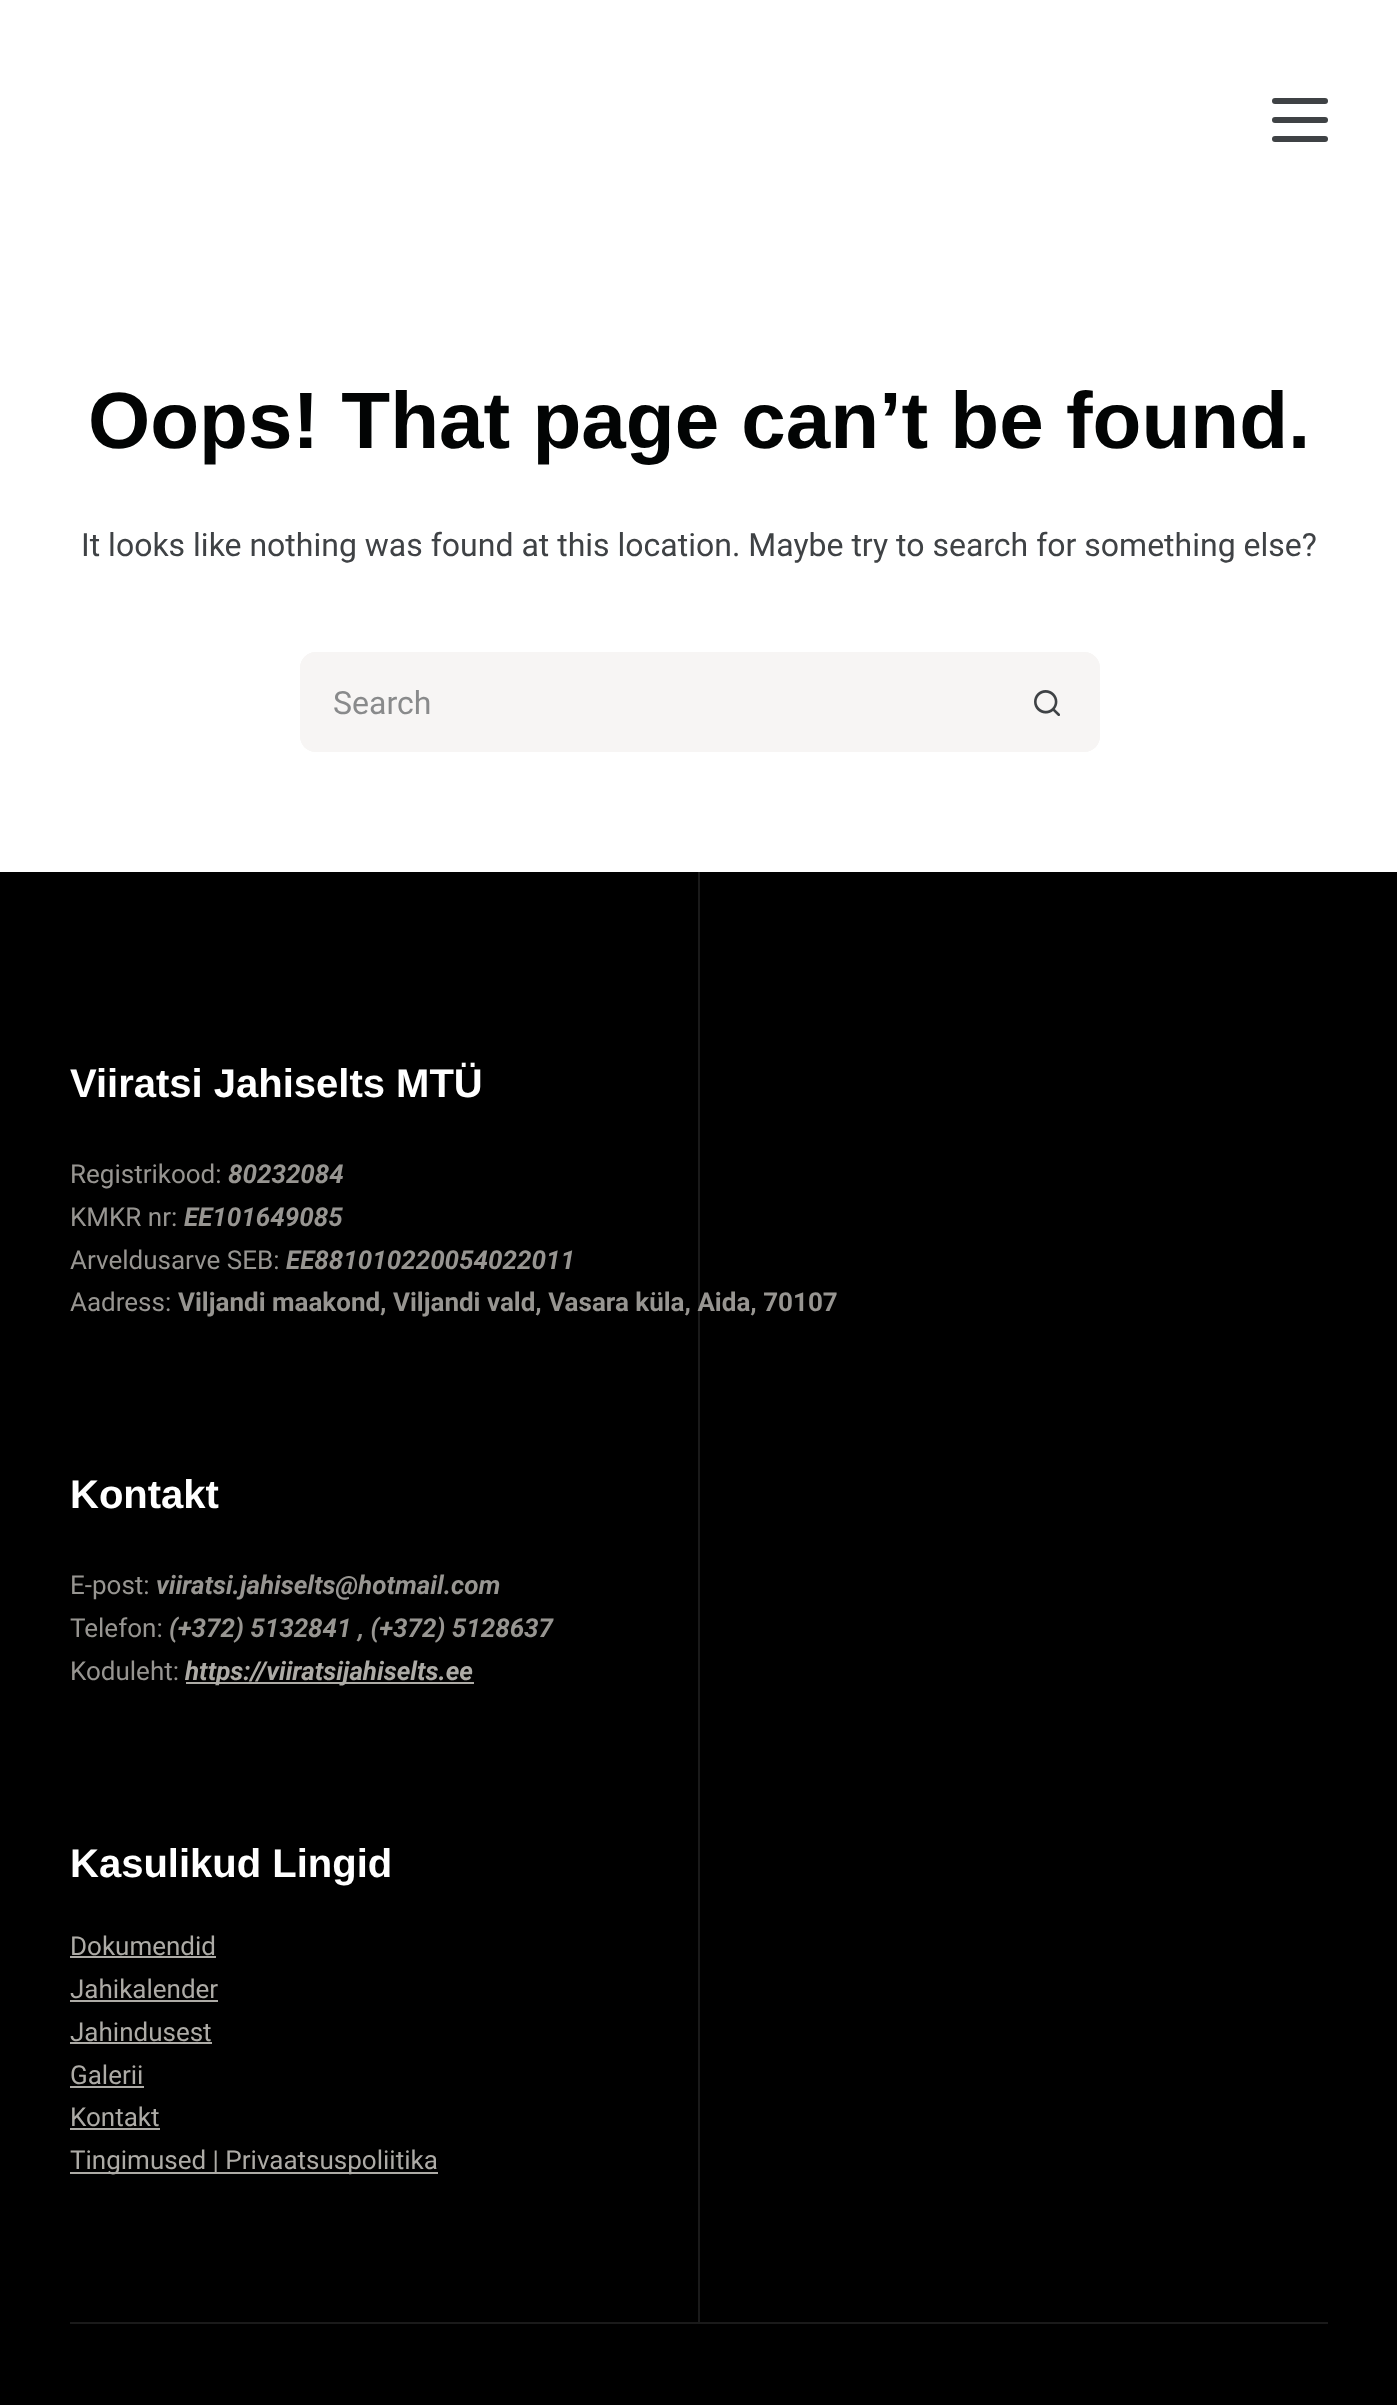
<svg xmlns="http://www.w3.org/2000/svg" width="1397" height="2405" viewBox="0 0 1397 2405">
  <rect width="100%" height="100%" fill="#ffffff"/>
  <rect x="1272" y="98" width="56" height="6" rx="3" fill="#3f4245"/>
  <rect x="1272" y="117" width="56" height="6" rx="3" fill="#3f4245"/>
  <rect x="1272" y="136" width="56" height="6" rx="3" fill="#3f4245"/>
  <text x="88" y="448" font-family="Liberation Sans" font-size="80" font-weight="bold" fill="#020404">Oops! That page can’t be found.</text>
  <text x="81" y="556" font-family="Roboto" font-size="32" fill="#3f4245">It looks like nothing was found at this location. Maybe try to search for something else?</text>
  <path d="M316 652H1000V752H316C307 752 300 745 300 736V668C300 659 307 652 316 652Z" fill="#f7f5f4"/>
  <path d="M316 652H1000V752H316C307 752 300 745 300 736V668C300 659 307 652 316 652ZM316 656H1000V748H316C309 748 304 743 304 736V668C304 661 309 656 316 656Z" fill="#f7f5f4" fill-rule="evenodd"/>
  <text x="333" y="714" font-family="Roboto" font-size="32" fill="#898a8b">Search</text>
  <path d="M1000 652H1084C1093 652 1100 659 1100 668V736C1100 745 1093 752 1084 752H1000Z" fill="#f7f5f4"/>
  <path d="M1000 652H1084C1093 652 1100 659 1100 668V736C1100 745 1093 752 1084 752H1000ZM1000 656H1084C1091 656 1096 661 1096 668V736C1096 743 1091 748 1084 748H1000Z" fill="#f7f5f4" fill-rule="evenodd"/>
  <image x="1034" y="690" width="26" height="26" href="img1.png"/>
  <rect x="0" y="872" width="1397" height="1533" fill="#000000"/>
  <rect x="70" y="2322" width="1258" height="2" fill="#1a1a1a"/>
  <rect x="698" y="872" width="2" height="1450" fill="#ffffff" fill-opacity="0.1"/>
  <text x="70" y="1097" font-family="Liberation Sans" font-size="40" font-weight="bold" fill="#ffffff">Viiratsi Jahiselts MTÜ</text>
  <text x="70" y="1183" font-family="Roboto" font-size="26" fill="#979591">Registrikood:</text>
  <text x="228" y="1183" font-family="Roboto" font-size="26" font-weight="bold" font-style="italic" fill="#979591">80232084</text>
  <text x="70" y="1226" font-family="Roboto" font-size="26" fill="#979591">KMKR nr:</text>
  <text x="184" y="1226" font-family="Roboto" font-size="26" font-weight="bold" font-style="italic" fill="#979591">EE101649085</text>
  <text x="70" y="1269" font-family="Roboto" font-size="26" fill="#979591">Arveldusarve SEB:</text>
  <text x="286" y="1269" font-family="Roboto" font-size="26" font-weight="bold" font-style="italic" fill="#979591">EE881010220054022011</text>
  <text x="70" y="1311" font-family="Roboto" font-size="26" fill="#979591">Aadress:</text>
  <text x="178" y="1311" font-family="Roboto" font-size="26" font-weight="bold" fill="#979591">Viljandi maakond, Viljandi vald, Vasara küla, Aida, 70107</text>
  <text x="70" y="1508" font-family="Liberation Sans" font-size="40" font-weight="bold" fill="#ffffff">Kontakt</text>
  <text x="70" y="1594" font-family="Roboto" font-size="26" fill="#979591">E-post:</text>
  <text x="156" y="1594" font-family="Roboto" font-size="26" font-weight="bold" font-style="italic" fill="#979591">viiratsi.jahiselts@hotmail.com</text>
  <text x="70" y="1637" font-family="Roboto" font-size="26" fill="#979591">Telefon:</text>
  <text x="169" y="1637" font-family="Roboto" font-size="26" font-weight="bold" font-style="italic" fill="#979591">(+372) 5132841 , (+372) 5128637</text>
  <text x="70" y="1680" font-family="Roboto" font-size="26" fill="#979591">Koduleht:</text>
  <rect x="186" y="1682" width="288" height="2" fill="#adaba6"/>
  <text x="185" y="1680" font-family="Roboto" font-size="26" font-weight="bold" font-style="italic" fill="#adaba6">https://viiratsijahiselts.ee</text>
  <text x="70" y="1877" font-family="Liberation Sans" font-size="40" font-weight="bold" fill="#ffffff">Kasulikud Lingid</text>
  <text x="70" y="1955" font-family="Roboto" font-size="26" fill="#adaba6">Dokumendid</text>
  <rect x="70" y="1956" width="146" height="2" fill="#adaba6"/>
  <text x="70" y="1998" font-family="Roboto" font-size="26" fill="#adaba6">Jahikalender</text>
  <rect x="70" y="2000" width="148" height="2" fill="#adaba6"/>
  <text x="70" y="2041" font-family="Roboto" font-size="26" fill="#adaba6">Jahindusest</text>
  <rect x="70" y="2042" width="142" height="2" fill="#adaba6"/>
  <text x="70" y="2084" font-family="Roboto" font-size="26" fill="#adaba6">Galerii</text>
  <rect x="70" y="2086" width="74" height="2" fill="#adaba6"/>
  <text x="70" y="2126" font-family="Roboto" font-size="26" fill="#adaba6">Kontakt</text>
  <rect x="70" y="2128" width="90" height="2" fill="#adaba6"/>
  <rect x="70" y="2172" width="368" height="2" fill="#adaba6"/>
  <text x="70" y="2169" font-family="Roboto" font-size="26" fill="#adaba6">Tingimused | Privaatsuspoliitika</text>
</svg>
